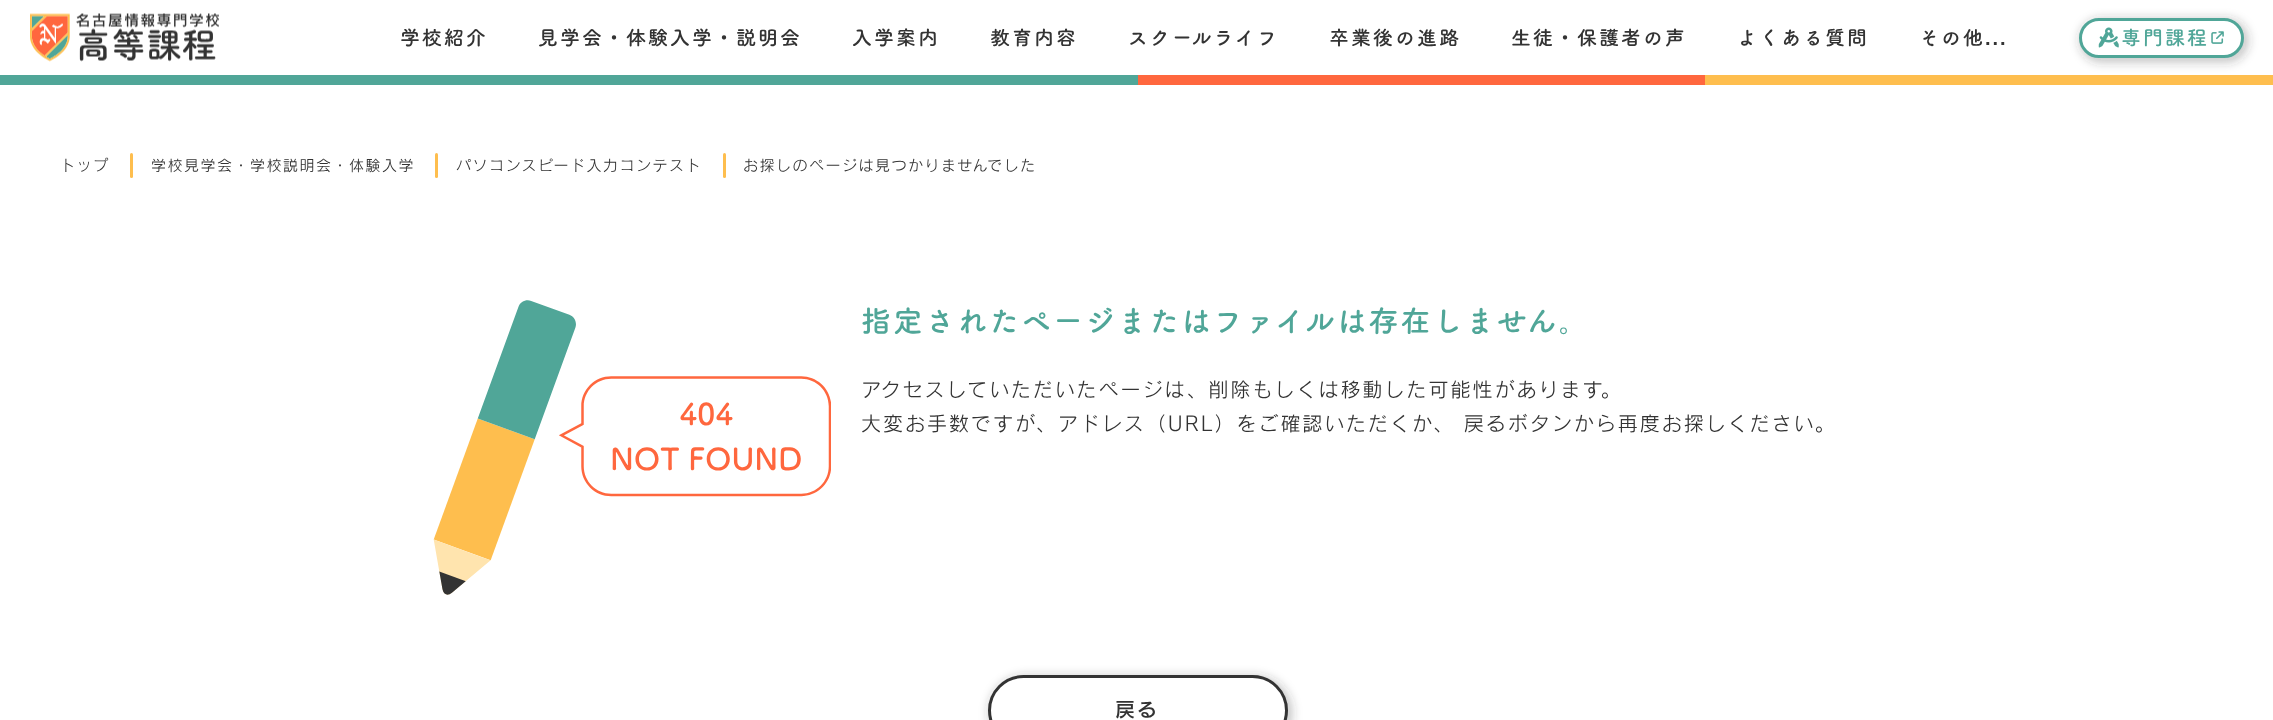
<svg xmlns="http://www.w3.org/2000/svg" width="2273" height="720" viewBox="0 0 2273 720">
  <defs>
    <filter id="blur1" x="-50%" y="-200%" width="200%" height="500%"><feGaussianBlur stdDeviation="5"/></filter>
  </defs>
  <rect width="100%" height="100%" fill="#ffffff"/>
  <image x="30" y="13" width="189" height="49" href="img1.png"/>
  <text x="400" y="45" font-family="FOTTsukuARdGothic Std" font-size="20" font-weight="bold" letter-spacing="2" fill="#333333">学校紹介</text>
  <text x="538" y="45" font-family="FOTTsukuARdGothic Std" font-size="20" font-weight="bold" letter-spacing="2" fill="#333333">見学会・体験入学・説明会</text>
  <text x="852" y="45" font-family="FOTTsukuARdGothic Std" font-size="20" font-weight="bold" letter-spacing="2" fill="#333333">入学案内</text>
  <text x="990" y="45" font-family="FOTTsukuARdGothic Std" font-size="20" font-weight="bold" letter-spacing="2" fill="#333333">教育内容</text>
  <text x="1128" y="45" font-family="FOTTsukuARdGothic Std" font-size="20" font-weight="bold" letter-spacing="2" fill="#333333">スクールライフ</text>
  <text x="1329" y="45" font-family="FOTTsukuARdGothic Std" font-size="20" font-weight="bold" letter-spacing="2" fill="#333333">卒業後の進路</text>
  <text x="1511" y="45" font-family="FOTTsukuARdGothic Std" font-size="20" font-weight="bold" letter-spacing="2" fill="#333333">生徒・保護者の声</text>
  <text x="1737" y="45" font-family="FOTTsukuARdGothic Std" font-size="20" font-weight="bold" letter-spacing="2" fill="#333333">よくある質問</text>
  <text x="1919" y="45" font-family="FOTTsukuARdGothic Std" font-size="20" font-weight="bold" letter-spacing="2" fill="#333333">その他</text>
  <text x="1985" y="45" font-family="Liberation Sans" font-size="20" font-weight="bold" letter-spacing="2" fill="#333333">...</text>
  <rect x="2079" y="18" width="170" height="45" rx="22.5" fill="#333333" fill-opacity="0.25" filter="url(#blur1)"/>
  <rect x="2080.5" y="19.5" width="162" height="37" rx="18.5" fill="#ffffff" stroke="#50a698" stroke-width="3"/>
  <image x="2098" y="27" width="21" height="21" href="img2.png"/>
  <text x="2121" y="45" font-family="FOTTsukuARdGothic Std" font-size="20" font-weight="bold" letter-spacing="2" fill="#50a698">専門課程</text>
  <image x="2211" y="31" width="13" height="13" href="img3.png"/>
  <rect x="0" y="75" width="1138" height="10" fill="#50a698"/>
  <rect x="1138" y="75" width="567" height="10" fill="#ff673e"/>
  <rect x="1705" y="75" width="568" height="10" fill="#febe4e"/>
  <text x="60" y="171" font-family="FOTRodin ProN" font-size="15" font-weight="500" letter-spacing="1.5" fill="#333333">トップ</text>
  <rect x="130" y="153" width="3" height="25" rx="1.5" fill="#febe4e"/>
  <text x="151" y="171" font-family="FOTRodin ProN" font-size="15" font-weight="500" letter-spacing="1.5" fill="#333333">学校見学会・学校説明会・体験入学</text>
  <rect x="435" y="153" width="3" height="25" rx="1.5" fill="#febe4e"/>
  <text x="456" y="171" font-family="FOTRodin ProN" font-size="15" font-weight="500" letter-spacing="1.5" fill="#333333">パソコンスピード入力コンテスト</text>
  <rect x="723" y="153" width="3" height="25" rx="1.5" fill="#febe4e"/>
  <text x="743" y="171" font-family="FOTRodin ProN" font-size="15" font-weight="500" letter-spacing="1.5" fill="#333333">お探しのページは見つかりませんでした</text>
  <image x="433" y="300" width="398" height="295" href="img4.png"/>
  <text x="861" y="332" font-family="FOTTsukuARdGothic Std" font-size="30" font-weight="bold" letter-spacing="2" fill="#50a698">指定されたページまたはファイルは存在しません。</text>
  <text x="861" y="397" font-family="FOTRodin ProN" font-size="20" font-weight="500" letter-spacing="2" fill="#333333">アクセスしていただいたページは、削除もしくは移動した可能性があります。</text>
  <text x="861" y="431" font-family="FOTRodin ProN" font-size="20" font-weight="500" letter-spacing="2" fill="#333333">大変お手数ですが、アドレス（URL）をご確認いただくか、 戻るボタンから再度お探しください。</text>
  <rect x="988" y="675" width="305" height="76" rx="38" fill="#333333" fill-opacity="0.25" filter="url(#blur1)"/>
  <rect x="989.5" y="676.5" width="297" height="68" rx="34" fill="#ffffff" stroke="#333333" stroke-width="3"/>
  <text x="1115" y="717" font-family="FOTRodin ProN" font-size="20" font-weight="600" letter-spacing="2" fill="#333333">戻る</text>
</svg>
